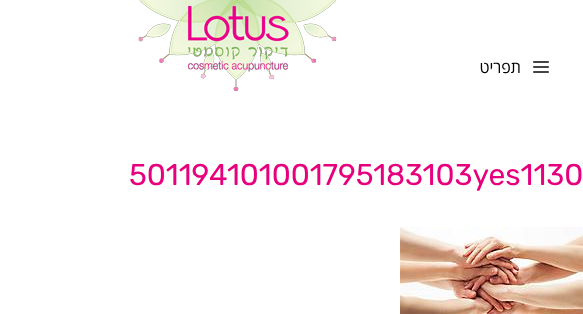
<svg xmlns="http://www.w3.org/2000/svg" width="583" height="314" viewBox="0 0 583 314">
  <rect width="100%" height="100%" fill="#ffffff"/>
  <image x="138" y="0" width="199" height="91" href="img1.png"/>
  <text x="521" y="73" font-family="Open Sans" font-size="16" direction="rtl" fill="#000000">תפריט</text>
  <image x="533" y="61" width="16" height="12" href="img2.png"/>
  <text x="129" y="185" font-family="Rubik" font-size="30" fill="#e6007e">501194101001795183103yes1130</text>
  <image x="400" y="227" width="183" height="87" href="img3.png"/>
</svg>
